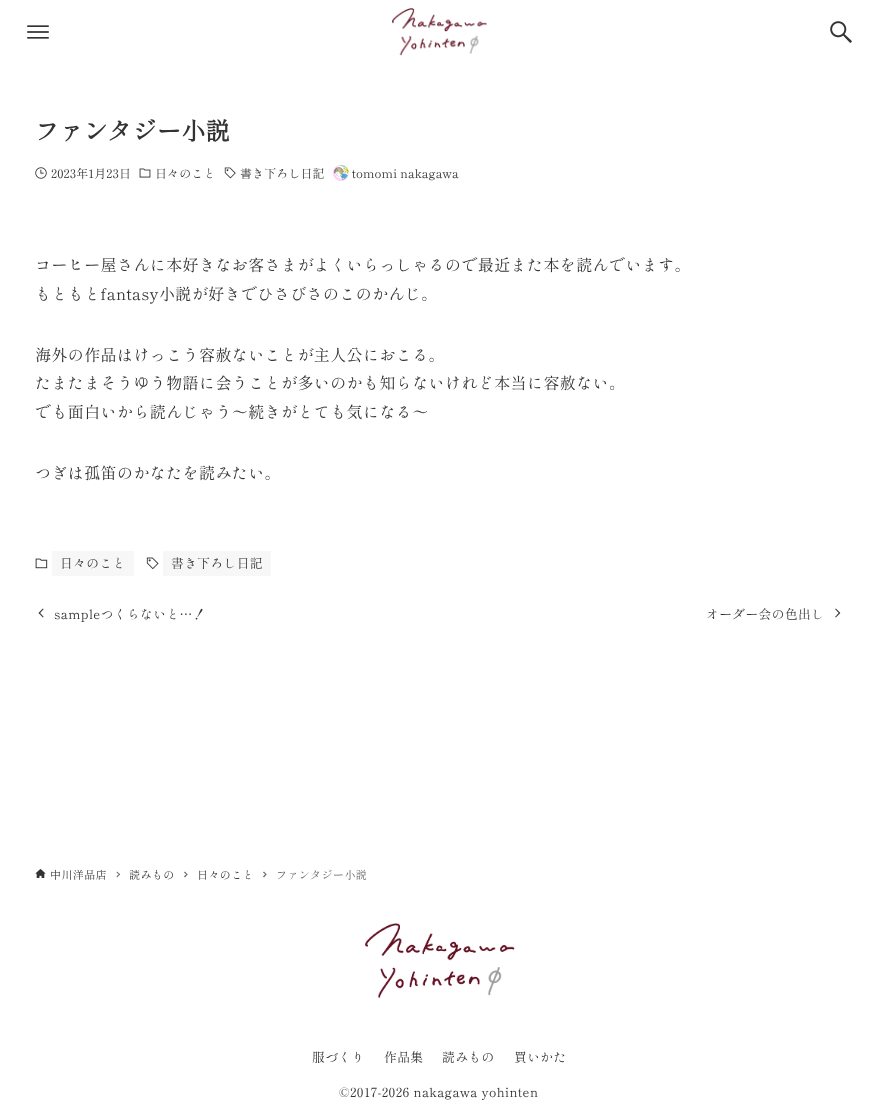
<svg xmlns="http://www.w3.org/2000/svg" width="879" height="1117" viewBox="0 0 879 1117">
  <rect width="100%" height="100%" fill="#ffffff"/>
  <image x="27" y="25" width="22" height="14" href="img1.png"/>
  <image x="392" y="8" width="95" height="48" href="img2.png"/>
  <image x="830" y="21" width="22" height="22" href="img3.png"/>
  <text x="35" y="140" font-family="Shippori Mincho" font-size="24" font-weight="bold" letter-spacing="0.4" fill="#333333">ファンタジー小説</text>
  <image x="35" y="167" width="12" height="12" href="img4.png"/>
  <text x="51" y="178" font-family="Shippori Mincho" font-size="12" letter-spacing="0.1" fill="#333333">2023年1月23日</text>
  <image x="139" y="168" width="12" height="10" href="img5.png"/>
  <text x="155" y="178" font-family="Shippori Mincho" font-size="12" letter-spacing="0.1" fill="#333333">日々のこと</text>
  <image x="224" y="167" width="12" height="12" href="img6.png"/>
  <text x="240" y="178" font-family="Shippori Mincho" font-size="12" letter-spacing="0.1" fill="#333333">書き下ろし日記</text>
  <image x="333" y="165" width="16" height="16" href="img7.png"/>
  <text x="352" y="178" font-family="Shippori Mincho" font-size="12" letter-spacing="0.1" fill="#333333">tomomi nakagawa</text>
  <text x="35" y="271" font-family="Shippori Mincho" font-size="16" letter-spacing="0.4" fill="#333333">コーヒー屋さんに本好きなお客さまがよくいらっしゃるので最近また本を読んでいます。</text>
  <text x="35" y="300" font-family="Shippori Mincho" font-size="16" letter-spacing="0.4" fill="#333333">もともとfantasy小説が好きでひさびさのこのかんじ。</text>
  <text x="35" y="361" font-family="Shippori Mincho" font-size="16" letter-spacing="0.4" fill="#333333">海外の作品はけっこう容赦ないことが主人公におこる。</text>
  <text x="35" y="389" font-family="Shippori Mincho" font-size="16" letter-spacing="0.4" fill="#333333">たまたまそうゆう物語に会うことが多いのかも知らないけれど本当に容赦ない。</text>
  <text x="35" y="418" font-family="Shippori Mincho" font-size="16" letter-spacing="0.4" fill="#333333">でも面白いから読んじゃう〜続きがとても気になる〜</text>
  <text x="35" y="479" font-family="Shippori Mincho" font-size="16" letter-spacing="0.4" fill="#333333">つぎは孤笛のかなたを読みたい。</text>
  <image x="35" y="558" width="13" height="11" href="img8.png"/>
  <rect x="52" y="551" width="82" height="25" fill="#f7f7f7"/>
  <text x="60" y="568" font-family="Shippori Mincho" font-size="12.75" letter-spacing="0.4" fill="#333333">日々のこと</text>
  <image x="146" y="557" width="13" height="13" href="img9.png"/>
  <rect x="163" y="551" width="108" height="25" fill="#f7f7f7"/>
  <text x="171" y="568" font-family="Shippori Mincho" font-size="12.75" letter-spacing="0.4" fill="#333333">書き下ろし日記</text>
  <image x="38" y="608" width="6" height="10" href="img10.png"/>
  <text x="54" y="619" font-family="Shippori Mincho" font-size="12.75" letter-spacing="0.4" fill="#333333">sampleつくらないと…！</text>
  <text x="706" y="619" font-family="Shippori Mincho" font-size="12.75" letter-spacing="0.4" fill="#333333">オーダー会の色出し</text>
  <image x="835" y="608" width="6" height="10" href="img11.png"/>
  <image x="35" y="869" width="11" height="9" href="img12.png"/>
  <text x="50" y="879" font-family="Shippori Mincho" font-size="11" letter-spacing="0.4" fill="#333333">中川洋品店</text>
  <path d="M117 871.5L120 874.5L119.5 875L116.5 872.5Z" fill="#666666"/>
  <path d="M119.5 873.5L120 874.5L117 877.5L116.5 876.5Z" fill="#666666"/>
  <text x="129" y="879" font-family="Shippori Mincho" font-size="11" letter-spacing="0.4" fill="#333333">読みもの</text>
  <path d="M185 871.5L187.5 874.5L187 875L184 872.5Z" fill="#666666"/>
  <path d="M187 873.5L187.5 874.5L185 877.5L184 876.5Z" fill="#666666"/>
  <text x="197" y="879" font-family="Shippori Mincho" font-size="11" letter-spacing="0.4" fill="#333333">日々のこと</text>
  <path d="M264 871.5L266.5 874.5L266 875L263 872.5Z" fill="#666666"/>
  <path d="M266 873.5L266.5 874.5L264 877.5L263 876.5Z" fill="#666666"/>
  <text x="276" y="879" font-family="Shippori Mincho" font-size="11" letter-spacing="0.4" fill="#666666">ファンタジー小説</text>
  <image x="365" y="923" width="150" height="76" href="img13.png"/>
  <text x="312" y="1062" font-family="Shippori Mincho" font-size="12.75" letter-spacing="0.4" fill="#333333">服づくり</text>
  <text x="384" y="1062" font-family="Shippori Mincho" font-size="12.75" letter-spacing="0.4" fill="#333333">作品集</text>
  <text x="442" y="1062" font-family="Shippori Mincho" font-size="12.75" letter-spacing="0.4" fill="#333333">読みもの</text>
  <text x="514" y="1062" font-family="Shippori Mincho" font-size="12.75" letter-spacing="0.4" fill="#333333">買いかた</text>
  <text x="339" y="1097" font-family="Shippori Mincho" font-size="12.75" letter-spacing="0.4" fill="#333333">©2017-2026 nakagawa yohinten</text>
</svg>
